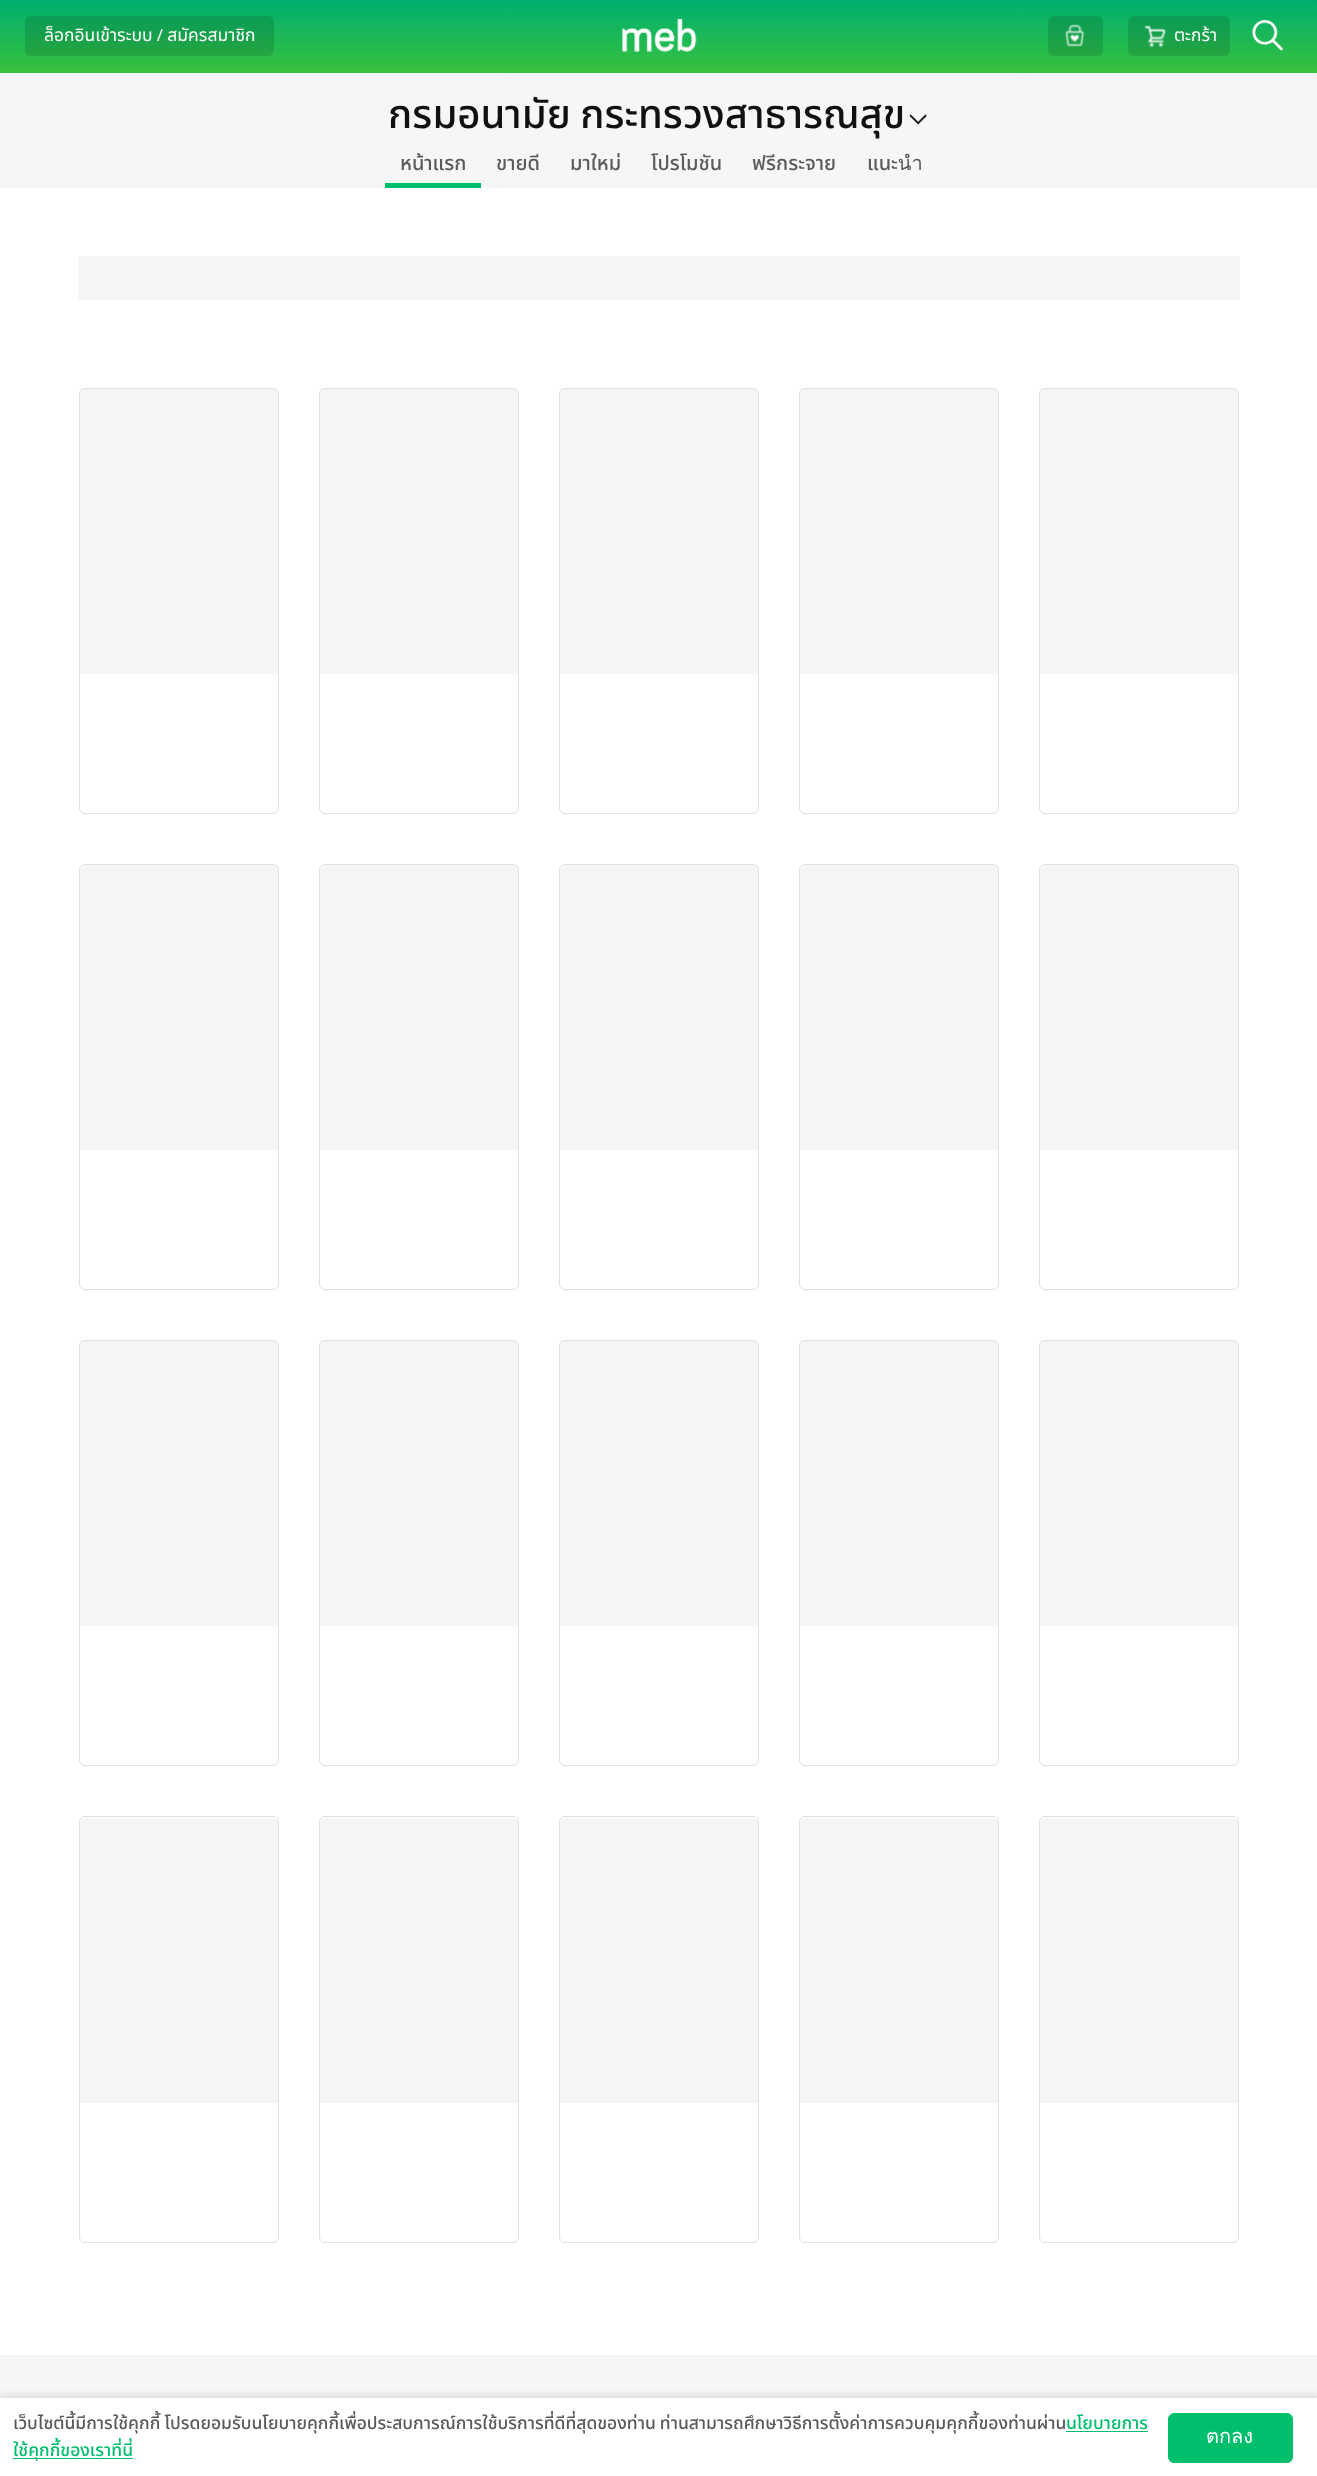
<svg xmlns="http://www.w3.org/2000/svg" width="1317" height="2476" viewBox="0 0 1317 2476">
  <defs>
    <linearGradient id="g1" gradientUnits="userSpaceOnUse" x1="659" y1="0" x2="659" y2="73"><stop offset="0" stop-color="#00af70"/><stop offset="1" stop-color="#37c13d"/></linearGradient>
    <filter id="blur1" x="-50%" y="-200%" width="200%" height="500%"><feGaussianBlur stdDeviation="3"/></filter>
  </defs>
  <rect width="100%" height="100%" fill="#ffffff"/>
  <rect x="0" y="0" width="1317" height="73" fill="url(#g1)"/>
  <rect x="25" y="16" width="249" height="40" rx="6" fill="#000000" fill-opacity="0.12"/>
  <text x="44" y="41" font-family="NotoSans" font-size="17.5" fill="#ffffff">ล็อกอินเข้าระบบ / สมัครสมาชิก</text>
  <image x="622" y="19" width="75" height="33" href="img1.png"/>
  <rect x="1048" y="16" width="55" height="40" rx="6" fill="#000000" fill-opacity="0.12"/>
  <image x="1065" y="24" width="20" height="23" href="img2.png"/>
  <rect x="1128" y="16" width="102" height="40" rx="6" fill="#000000" fill-opacity="0.12"/>
  <image x="1144" y="25" width="22" height="23" href="img3.png"/>
  <text x="1174" y="41" font-family="NotoSans" font-size="17.5" fill="#ffffff">ตะกร้า</text>
  <image x="1252" y="20" width="32" height="31" href="img4.png"/>
  <rect x="0" y="73" width="1317" height="115" fill="#f6f6f6"/>
  <text x="388" y="128" font-family="NotoSans" font-size="40" font-weight="500" fill="#111111">กรมอนามัย กระทรวงสาธารณสุข</text>
  <image x="909" y="114" width="18" height="11" href="img5.png"/>
  <rect x="385" y="183" width="96" height="5" fill="#00bf6c"/>
  <text x="400" y="170" font-family="NotoSans" font-size="20" font-weight="500" fill="#5a5a5a">หน้าแรก</text>
  <text x="496" y="170" font-family="NotoSans" font-size="20" font-weight="500" fill="#5a5a5a">ขายดี</text>
  <text x="570" y="170" font-family="NotoSans" font-size="20" font-weight="500" fill="#5a5a5a">มาใหม่</text>
  <text x="651" y="170" font-family="NotoSans" font-size="20" font-weight="500" fill="#5a5a5a">โปรโมชัน</text>
  <text x="752" y="170" font-family="NotoSans" font-size="20" font-weight="500" fill="#5a5a5a">ฟรีกระจาย</text>
  <text x="867" y="170" font-family="NotoSans" font-size="20" font-weight="500" fill="#5a5a5a">แนะนำ</text>
  <rect x="78" y="256" width="1162" height="44" fill="#f6f6f6"/>
  <rect x="79.5" y="388.5" width="199" height="425" rx="5.5" fill="none" stroke="#e0e0e0"/>
  <path d="M86 389H272C275.5 389 278 391.5 278 395V674H80V395C80 391.5 82.5 389 86 389Z" fill="#f5f5f5"/>
  <rect x="319.5" y="388.5" width="199" height="425" rx="5.5" fill="none" stroke="#e0e0e0"/>
  <path d="M326 389H512C515.5 389 518 391.5 518 395V674H320V395C320 391.5 322.5 389 326 389Z" fill="#f5f5f5"/>
  <rect x="559.5" y="388.5" width="199" height="425" rx="5.5" fill="none" stroke="#e0e0e0"/>
  <path d="M566 389H752C755.5 389 758 391.5 758 395V674H560V395C560 391.5 562.5 389 566 389Z" fill="#f5f5f5"/>
  <rect x="799.5" y="388.5" width="199" height="425" rx="5.5" fill="none" stroke="#e0e0e0"/>
  <path d="M806 389H992C995.5 389 998 391.5 998 395V674H800V395C800 391.5 802.5 389 806 389Z" fill="#f5f5f5"/>
  <rect x="1039.5" y="388.5" width="199" height="425" rx="5.5" fill="none" stroke="#e0e0e0"/>
  <path d="M1046 389H1232C1235.5 389 1238 391.5 1238 395V674H1040V395C1040 391.5 1042.5 389 1046 389Z" fill="#f5f5f5"/>
  <rect x="79.5" y="864.5" width="199" height="425" rx="5.5" fill="none" stroke="#e0e0e0"/>
  <path d="M86 865H272C275.5 865 278 867.5 278 871V1150H80V871C80 867.5 82.5 865 86 865Z" fill="#f5f5f5"/>
  <rect x="319.5" y="864.5" width="199" height="425" rx="5.5" fill="none" stroke="#e0e0e0"/>
  <path d="M326 865H512C515.5 865 518 867.5 518 871V1150H320V871C320 867.5 322.5 865 326 865Z" fill="#f5f5f5"/>
  <rect x="559.5" y="864.5" width="199" height="425" rx="5.5" fill="none" stroke="#e0e0e0"/>
  <path d="M566 865H752C755.5 865 758 867.5 758 871V1150H560V871C560 867.5 562.5 865 566 865Z" fill="#f5f5f5"/>
  <rect x="799.5" y="864.5" width="199" height="425" rx="5.5" fill="none" stroke="#e0e0e0"/>
  <path d="M806 865H992C995.5 865 998 867.5 998 871V1150H800V871C800 867.5 802.5 865 806 865Z" fill="#f5f5f5"/>
  <rect x="1039.5" y="864.5" width="199" height="425" rx="5.5" fill="none" stroke="#e0e0e0"/>
  <path d="M1046 865H1232C1235.5 865 1238 867.5 1238 871V1150H1040V871C1040 867.5 1042.5 865 1046 865Z" fill="#f5f5f5"/>
  <rect x="79.5" y="1340.5" width="199" height="425" rx="5.5" fill="none" stroke="#e0e0e0"/>
  <path d="M86 1341H272C275.5 1341 278 1343.5 278 1347V1626H80V1347C80 1343.5 82.5 1341 86 1341Z" fill="#f5f5f5"/>
  <rect x="319.5" y="1340.5" width="199" height="425" rx="5.5" fill="none" stroke="#e0e0e0"/>
  <path d="M326 1341H512C515.5 1341 518 1343.5 518 1347V1626H320V1347C320 1343.5 322.5 1341 326 1341Z" fill="#f5f5f5"/>
  <rect x="559.5" y="1340.5" width="199" height="425" rx="5.5" fill="none" stroke="#e0e0e0"/>
  <path d="M566 1341H752C755.5 1341 758 1343.5 758 1347V1626H560V1347C560 1343.5 562.5 1341 566 1341Z" fill="#f5f5f5"/>
  <rect x="799.5" y="1340.5" width="199" height="425" rx="5.5" fill="none" stroke="#e0e0e0"/>
  <path d="M806 1341H992C995.5 1341 998 1343.5 998 1347V1626H800V1347C800 1343.5 802.5 1341 806 1341Z" fill="#f5f5f5"/>
  <rect x="1039.5" y="1340.5" width="199" height="425" rx="5.5" fill="none" stroke="#e0e0e0"/>
  <path d="M1046 1341H1232C1235.5 1341 1238 1343.5 1238 1347V1626H1040V1347C1040 1343.5 1042.5 1341 1046 1341Z" fill="#f5f5f5"/>
  <rect x="79.5" y="1816.5" width="199" height="426" rx="5.5" fill="none" stroke="#e0e0e0"/>
  <path d="M86 1818H272C275.5 1818 278 1820.5 278 1824V2103H80V1824C80 1820.5 82.5 1818 86 1818Z" fill="#f5f5f5"/>
  <rect x="319.5" y="1816.5" width="199" height="426" rx="5.5" fill="none" stroke="#e0e0e0"/>
  <path d="M326 1818H512C515.5 1818 518 1820.5 518 1824V2103H320V1824C320 1820.5 322.5 1818 326 1818Z" fill="#f5f5f5"/>
  <rect x="559.5" y="1816.5" width="199" height="426" rx="5.5" fill="none" stroke="#e0e0e0"/>
  <path d="M566 1818H752C755.5 1818 758 1820.5 758 1824V2103H560V1824C560 1820.5 562.5 1818 566 1818Z" fill="#f5f5f5"/>
  <rect x="799.5" y="1816.5" width="199" height="426" rx="5.5" fill="none" stroke="#e0e0e0"/>
  <path d="M806 1818H992C995.5 1818 998 1820.5 998 1824V2103H800V1824C800 1820.5 802.5 1818 806 1818Z" fill="#f5f5f5"/>
  <rect x="1039.5" y="1816.5" width="199" height="426" rx="5.5" fill="none" stroke="#e0e0e0"/>
  <path d="M1046 1818H1232C1235.5 1818 1238 1820.5 1238 1824V2103H1040V1824C1040 1820.5 1042.5 1818 1046 1818Z" fill="#f5f5f5"/>
  <rect x="0" y="2355" width="1317" height="43" fill="#f6f6f6"/>
  <rect x="0" y="2395" width="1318" height="79" fill="#000000" fill-opacity="0.1" filter="url(#blur1)"/>
  <rect x="0" y="2398" width="1317" height="78" fill="#ffffff"/>
  <text x="13" y="2429" font-family="NotoSans" font-size="17.5" font-weight="500" fill="#5a5a5a">เว็บไซต์นี้มีการใช้คุกกี้ โปรดยอมรับนโยบายคุกกี้เพื่อประสบการณ์การใช้บริการที่ดีที่สุดของท่าน ท่านสามารถศึกษาวิธีการตั้งค่าการควบคุมคุกกี้ของท่านผ่าน</text>
  <text x="1066" y="2429" font-family="NotoSans" font-size="17.5" font-weight="500" fill="#00bf6c">นโยบายการ</text>
  <rect x="1066" y="2431" width="82" height="1" fill="#00bf6c"/>
  <rect x="13" y="2458" width="120" height="1" fill="#00bf6c"/>
  <text x="13" y="2456" font-family="NotoSans" font-size="17.5" font-weight="500" fill="#00bf6c">ใช้คุกกี้ของเราที่นี่</text>
  <rect x="1168.5" y="2413.5" width="124" height="49" rx="5.5" fill="#00bf6c" stroke="#00bf6c"/>
  <text x="1206" y="2443" font-family="Loma" font-size="20" fill="#ffffff">ตกลง</text>
</svg>
